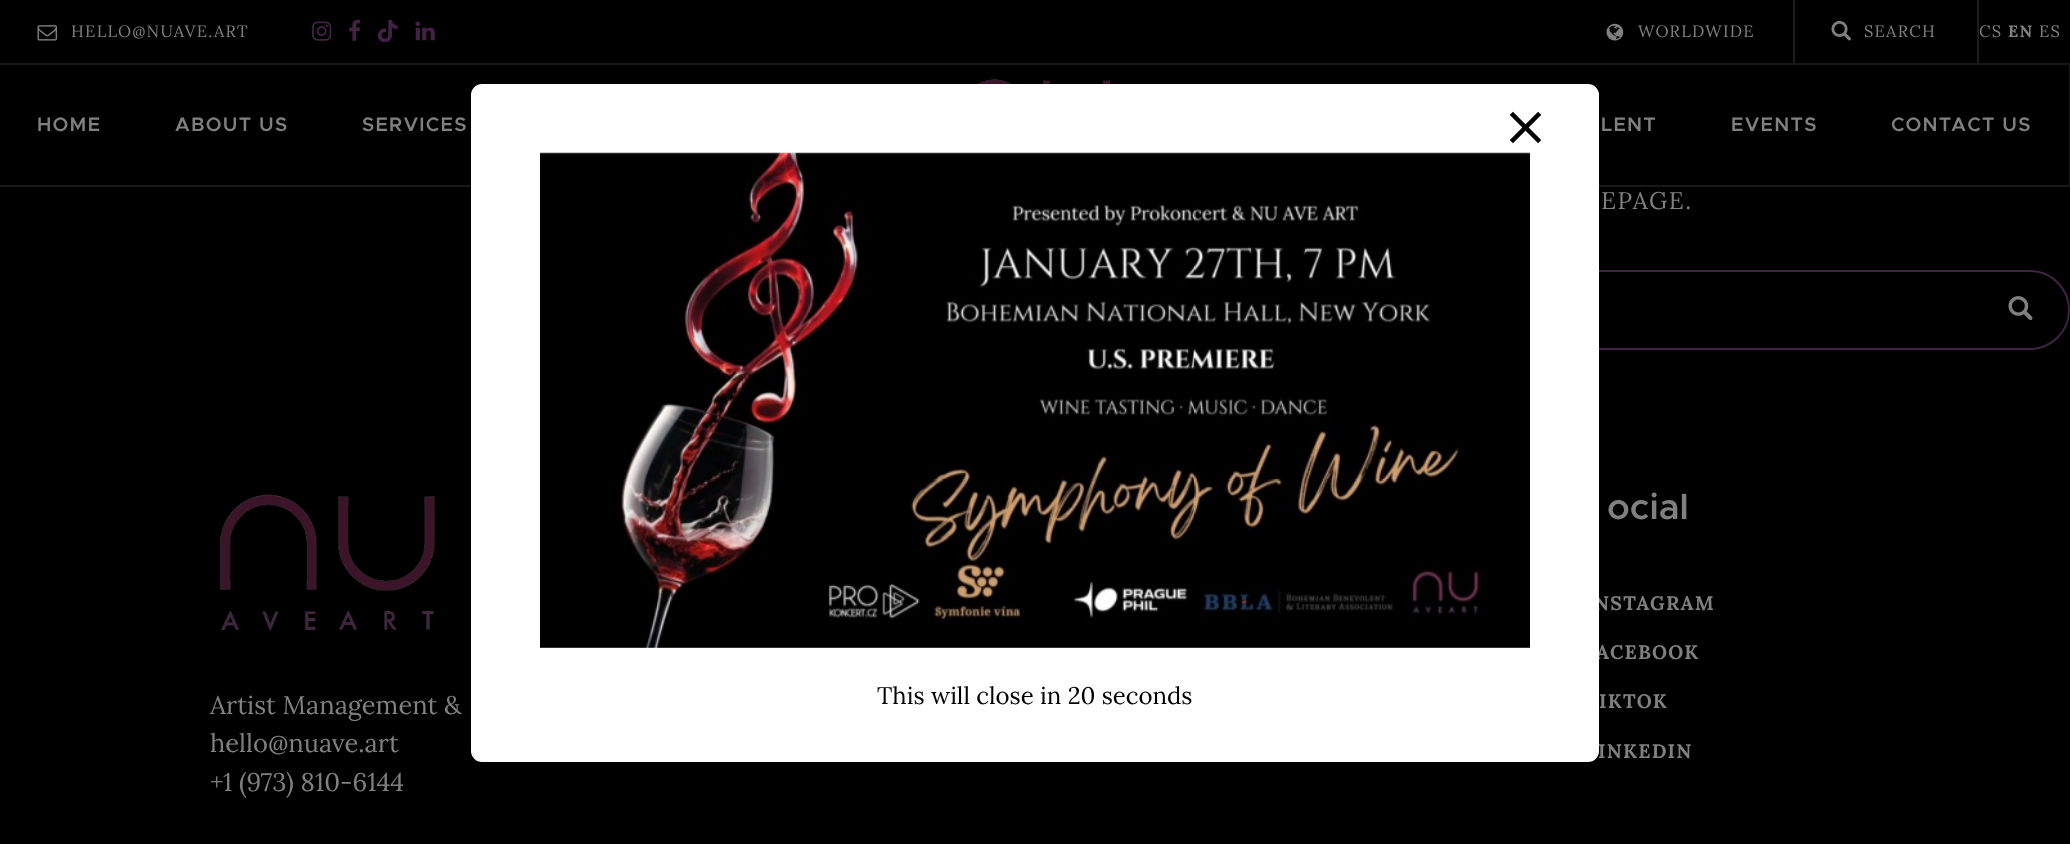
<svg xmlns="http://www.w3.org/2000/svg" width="2070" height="844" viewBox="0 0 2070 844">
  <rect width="100%" height="100%" fill="#000000"/>
  <image x="37" y="25" width="20" height="16" href="img1.png"/>
  <text x="71" y="37" font-family="Lora" font-size="16.5" letter-spacing="1.25" fill="#808080">HELLO@NUAVE.ART</text>
  <image x="312" y="21" width="20" height="20" href="img2.png"/>
  <image x="349" y="20" width="12" height="21" href="img3.png"/>
  <image x="377" y="20" width="21" height="22" href="img4.png"/>
  <image x="415" y="21" width="20" height="20" href="img5.png"/>
  <image x="1606" y="23" width="18" height="18" href="img6.png"/>
  <text x="1638" y="37" font-family="Lora" font-size="16.5" letter-spacing="1.25" fill="#808080">WORLDWIDE</text>
  <rect x="1977" y="0" width="2" height="63" fill="#1e1d19"/>
  <rect x="1793" y="0" width="2" height="63" fill="#1e1d19"/>
  <image x="1831" y="20" width="20" height="21" href="img7.png"/>
  <text x="1864" y="37" font-family="Lora" font-size="16.5" letter-spacing="1.25" fill="#808080">SEARCH</text>
  <text x="1979" y="37" font-family="Lora" font-size="16.5" letter-spacing="1.25" fill="#808080">CS</text>
  <text x="2008" y="37" font-family="Lora" font-size="16.5" font-weight="bold" letter-spacing="1.25" fill="#808080">EN</text>
  <text x="2039" y="37" font-family="Lora" font-size="16.5" letter-spacing="1.25" fill="#808080">ES</text>
  <rect x="0" y="63" width="2070" height="2" fill="#181815"/>
  <rect x="0" y="185" width="2070" height="2" fill="#181815"/>
  <image x="978" y="79" width="132" height="5" href="img8.png"/>
  <text x="37" y="131" font-family="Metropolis" font-size="19.5" font-weight="600" letter-spacing="1.25" fill="#808080">HOME</text>
  <text x="175" y="131" font-family="Metropolis" font-size="19.5" font-weight="600" letter-spacing="1.25" fill="#808080">ABOUT US</text>
  <text x="362" y="131" font-family="Metropolis" font-size="19.5" font-weight="600" letter-spacing="1.25" fill="#808080">SERVICES</text>
  <rect x="2069" y="65" width="1" height="120" fill="#181815"/>
  <text x="1601" y="131" font-family="Metropolis" font-size="19.5" font-weight="600" letter-spacing="1.25" fill="#808080">LENT</text>
  <text x="1731" y="131" font-family="Metropolis" font-size="19.5" font-weight="600" letter-spacing="1.25" fill="#808080">EVENTS</text>
  <text x="1891" y="131" font-family="Metropolis" font-size="19.5" font-weight="600" letter-spacing="1.25" fill="#808080">CONTACT US</text>
  <text x="1601" y="209" font-family="Lora" font-size="24" letter-spacing="1.5" fill="#808080">EPAGE.</text>
  <rect x="1156" y="271" width="913" height="78" rx="39" fill="none" stroke="#422242" stroke-width="2"/>
  <image x="2008" y="296" width="25" height="25" href="img9.png"/>
  <image x="220" y="494" width="215" height="138" href="img10.png"/>
  <text x="210" y="714" font-family="Lora" font-size="25.5" fill="#808080">Artist Management &amp;</text>
  <text x="210" y="752" font-family="Lora" font-size="25.5" fill="#808080">hello@nuave.art</text>
  <text x="210" y="791" font-family="Lora" font-size="25.5" fill="#808080">+1 (973) 810-6144</text>
  <text x="1607" y="519" font-family="Metropolis" font-size="36" font-weight="600" fill="#808080">ocial</text>
  <text x="1594" y="610" font-family="Lora" font-size="19.5" font-weight="bold" letter-spacing="1.25" fill="#808080">NSTAGRAM</text>
  <text x="1596" y="659" font-family="Lora" font-size="19.5" font-weight="bold" letter-spacing="1.25" fill="#808080">ACEBOOK</text>
  <text x="1599" y="708" font-family="Lora" font-size="19.5" font-weight="bold" letter-spacing="1.25" fill="#808080">IKTOK</text>
  <text x="1598" y="758" font-family="Lora" font-size="19.5" font-weight="bold" letter-spacing="1.25" fill="#808080">INKEDIN</text>
  <rect x="472" y="85" width="1126" height="676" rx="10" fill="#ffffff" stroke="#ffffff" stroke-width="2"/>
  <image x="1509" y="111" width="33" height="33" href="img11.png"/>
  <image x="540" y="152" width="990" height="496" href="img12.png"/>
  <text x="877" y="704" font-family="Lora" font-size="24" fill="#000000">This will close in 20 seconds</text>
</svg>
